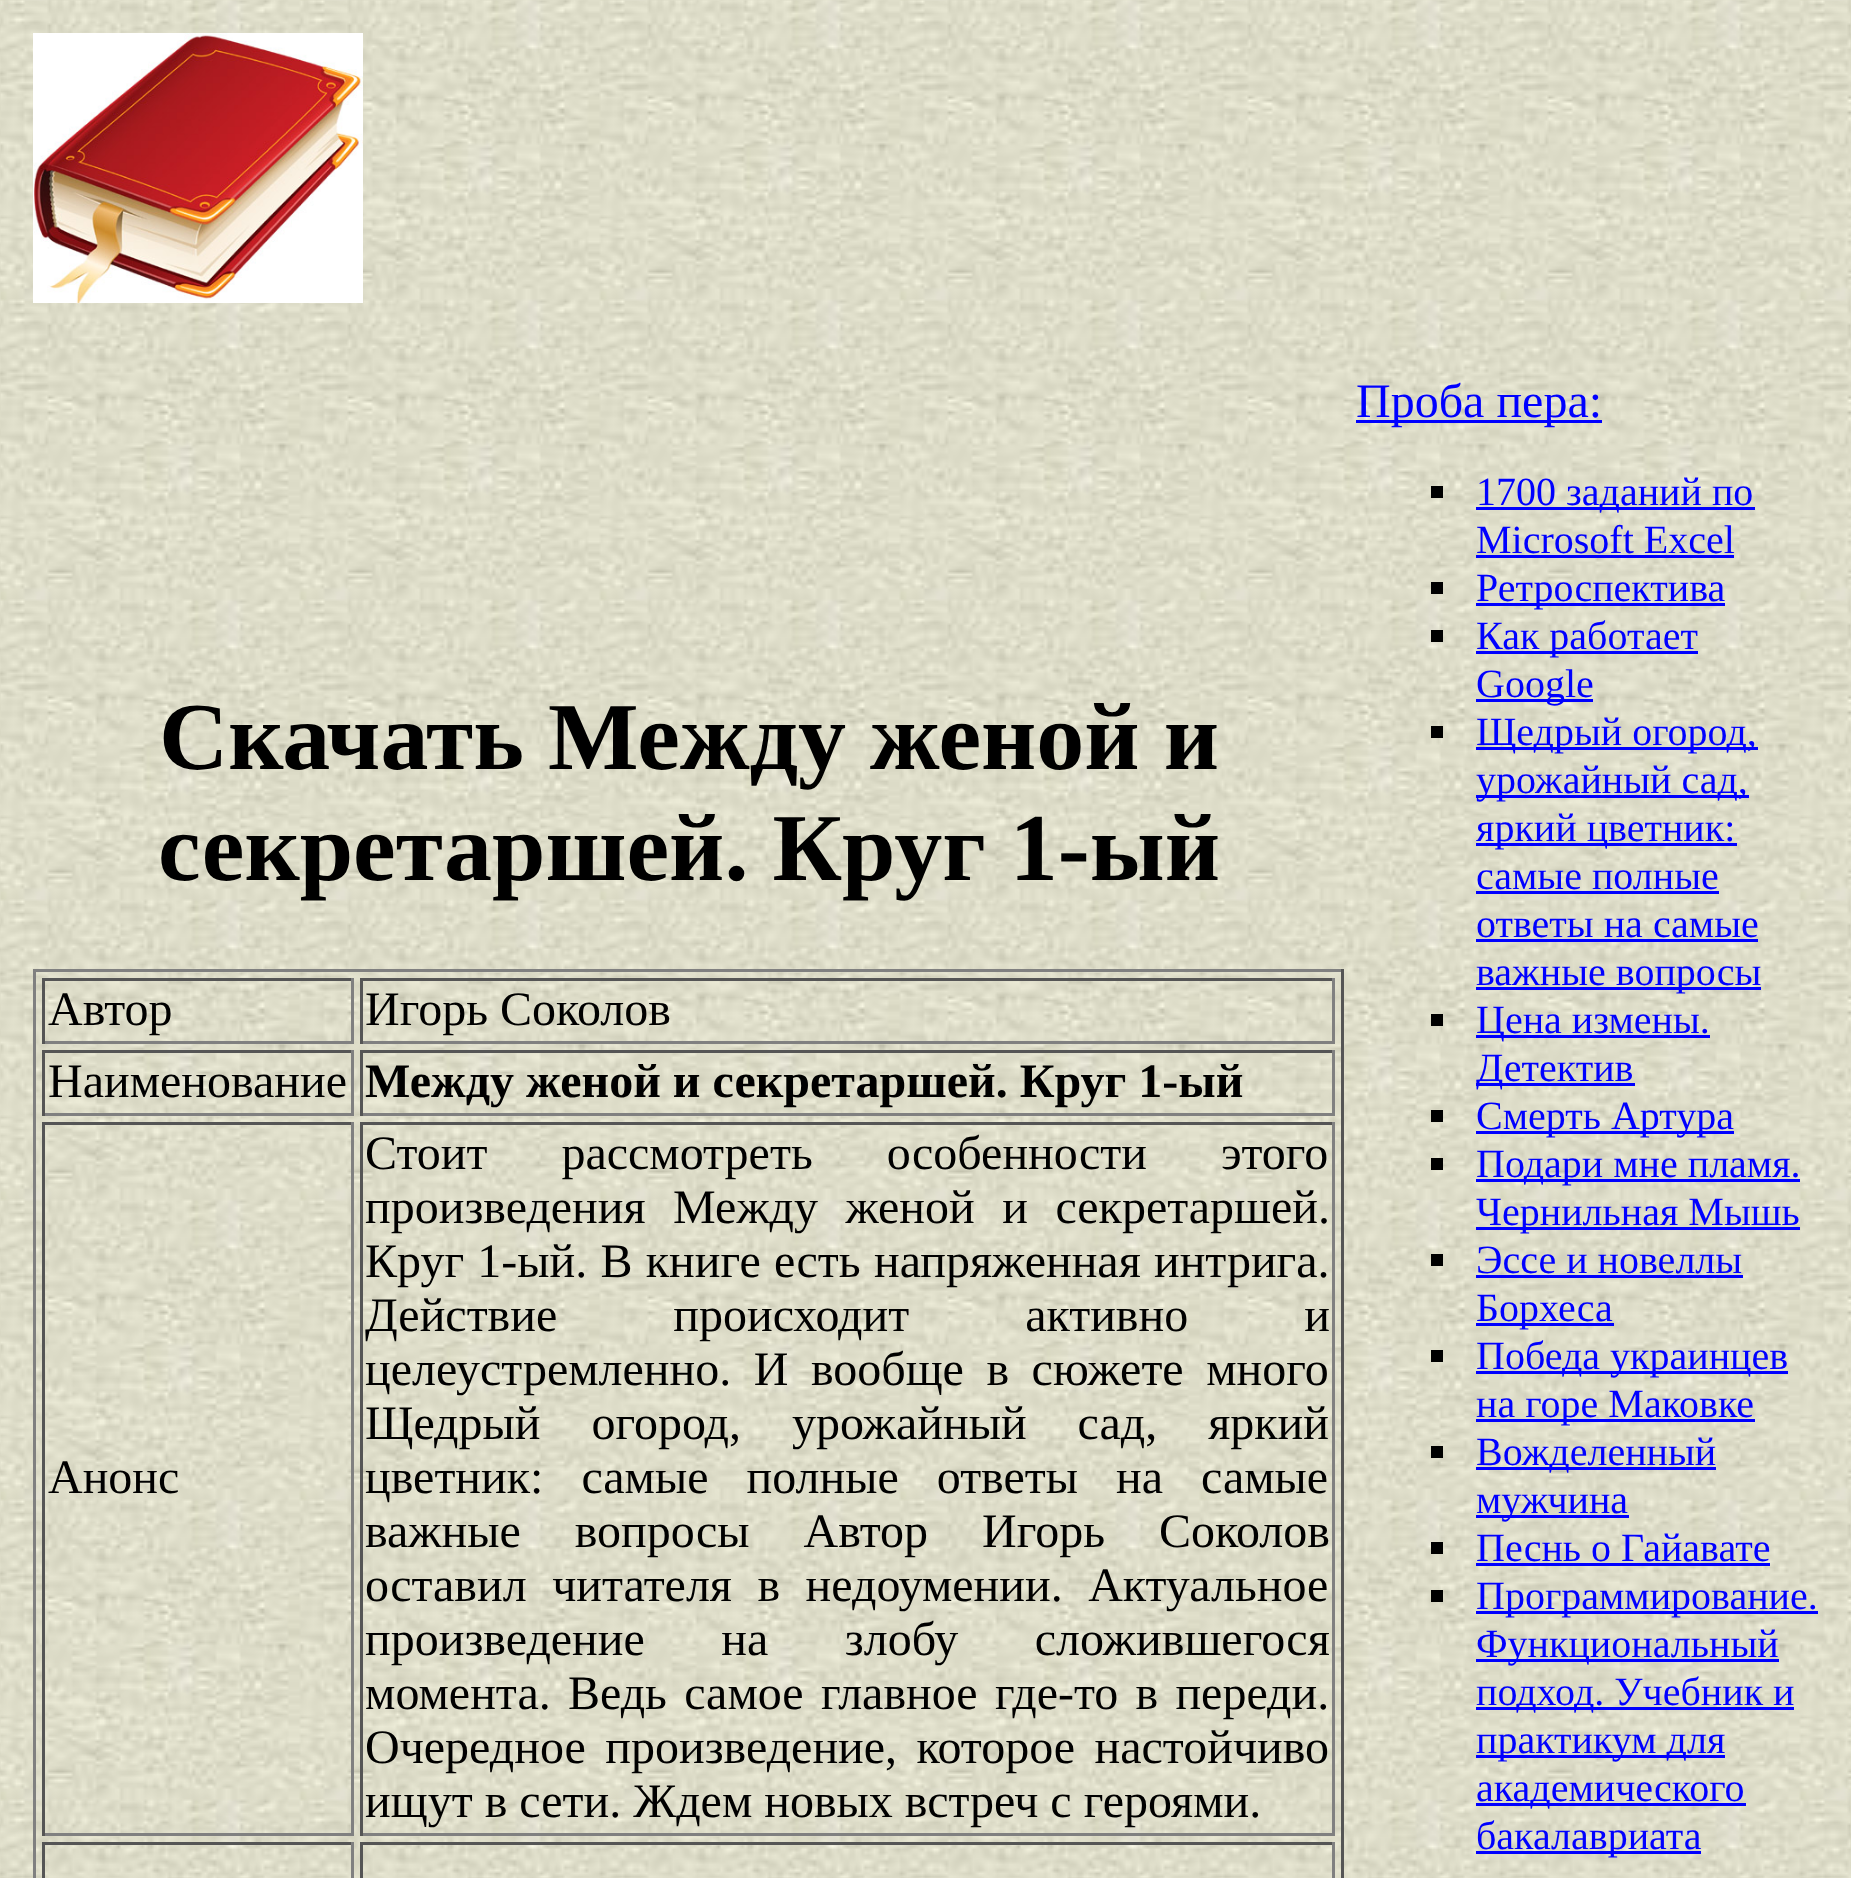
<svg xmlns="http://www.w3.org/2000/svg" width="1851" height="1878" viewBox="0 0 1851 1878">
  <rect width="100%" height="100%" fill="#ffffff"/>
  <image x="0" y="0" width="1851" height="1878" href="img1.png"/>
  <image x="33" y="33" width="330" height="270" href="img2.png"/>
  <text x="159" y="769" font-family="Liberation Serif" font-size="96" font-weight="bold" fill="#000000">Скачать Между женой и</text>
  <text x="158" y="880" font-family="Liberation Serif" font-size="96" font-weight="bold" fill="#000000">секретаршей. Круг 1-ый</text>
  <rect x="33" y="969" width="1311" height="3" fill="#808080"/>
  <rect x="1341" y="969" width="3" height="909" fill="#555555"/>
  <rect x="33" y="969" width="3" height="909" fill="#808080"/>
  <rect x="42" y="978" width="312" height="3" fill="#555555"/>
  <rect x="351" y="978" width="3" height="66" fill="#808080"/>
  <rect x="42" y="1041" width="312" height="3" fill="#808080"/>
  <rect x="42" y="978" width="3" height="66" fill="#555555"/>
  <text x="48" y="1025" font-family="Liberation Serif" font-size="48" fill="#000000">Автор</text>
  <rect x="360" y="978" width="975" height="3" fill="#555555"/>
  <rect x="1332" y="978" width="3" height="66" fill="#808080"/>
  <rect x="360" y="1041" width="975" height="3" fill="#808080"/>
  <rect x="360" y="978" width="3" height="66" fill="#555555"/>
  <text x="365" y="1025" font-family="Liberation Serif" font-size="48" fill="#000000">Игорь Соколов</text>
  <rect x="42" y="1050" width="312" height="3" fill="#555555"/>
  <rect x="351" y="1050" width="3" height="66" fill="#808080"/>
  <rect x="42" y="1113" width="312" height="3" fill="#808080"/>
  <rect x="42" y="1050" width="3" height="66" fill="#555555"/>
  <text x="48" y="1097" font-family="Liberation Serif" font-size="48" fill="#000000">Наименование</text>
  <rect x="360" y="1050" width="975" height="3" fill="#555555"/>
  <rect x="1332" y="1050" width="3" height="66" fill="#808080"/>
  <rect x="360" y="1113" width="975" height="3" fill="#808080"/>
  <rect x="360" y="1050" width="3" height="66" fill="#555555"/>
  <text x="365" y="1097" font-family="Liberation Serif" font-size="48" font-weight="bold" fill="#000000">Между женой и секретаршей. Круг 1-ый</text>
  <rect x="42" y="1122" width="312" height="3" fill="#555555"/>
  <rect x="351" y="1122" width="3" height="714" fill="#808080"/>
  <rect x="42" y="1833" width="312" height="3" fill="#808080"/>
  <rect x="42" y="1122" width="3" height="714" fill="#555555"/>
  <text x="48" y="1493" font-family="Liberation Serif" font-size="48" fill="#000000">Анонс</text>
  <rect x="360" y="1122" width="975" height="3" fill="#555555"/>
  <rect x="1332" y="1122" width="3" height="714" fill="#808080"/>
  <rect x="360" y="1833" width="975" height="3" fill="#808080"/>
  <rect x="360" y="1122" width="3" height="714" fill="#555555"/>
  <text x="365" y="1169" word-spacing="62" font-family="Liberation Serif" font-size="48" fill="#000000">Стоит рассмотреть особенности этого</text>
  <text x="365" y="1223" word-spacing="15.5" font-family="Liberation Serif" font-size="48" fill="#000000">произведения Между женой и секретаршей.</text>
  <text x="365" y="1277" word-spacing="1.25" font-family="Liberation Serif" font-size="48" fill="#000000">Круг 1-ый. В книге есть напряженная интрига.</text>
  <text x="365" y="1331" word-spacing="104" font-family="Liberation Serif" font-size="48" fill="#000000">Действие происходит активно и</text>
  <text x="365" y="1385" word-spacing="10.5" font-family="Liberation Serif" font-size="48" fill="#000000">целеустремленно. И вообще в сюжете много</text>
  <text x="365" y="1439" word-spacing="39" font-family="Liberation Serif" font-size="48" fill="#000000">Щедрый огород, урожайный сад, яркий</text>
  <text x="365" y="1493" word-spacing="26" font-family="Liberation Serif" font-size="48" fill="#000000">цветник: самые полные ответы на самые</text>
  <text x="365" y="1547" word-spacing="42" font-family="Liberation Serif" font-size="48" fill="#000000">важные вопросы Автор</text>
  <text x="982" y="1547" word-spacing="42" font-family="Liberation Serif" font-size="48" fill="#000000">Игорь Соколов</text>
  <text x="365" y="1601" word-spacing="13.5" font-family="Liberation Serif" font-size="48" fill="#000000">оставил читателя в недоумении. Актуальное</text>
  <text x="365" y="1655" word-spacing="64.5" font-family="Liberation Serif" font-size="48" fill="#000000">произведение на злобу сложившегося</text>
  <text x="365" y="1709" word-spacing="5.25" font-family="Liberation Serif" font-size="48" fill="#000000">момента. Ведь самое главное где-то в переди.</text>
  <text x="365" y="1763" word-spacing="7.5" font-family="Liberation Serif" font-size="48" fill="#000000">Очередное произведение, которое настойчиво</text>
  <text x="365" y="1817" font-family="Liberation Serif" font-size="48" fill="#000000">ищут в сети. Ждем новых встреч с героями.</text>
  <rect x="42" y="1842" width="312" height="3" fill="#555555"/>
  <rect x="351" y="1842" width="3" height="36" fill="#808080"/>
  <rect x="42" y="1842" width="3" height="36" fill="#555555"/>
  <rect x="360" y="1842" width="975" height="3" fill="#555555"/>
  <rect x="1332" y="1842" width="3" height="36" fill="#808080"/>
  <rect x="360" y="1842" width="3" height="36" fill="#555555"/>
  <rect x="1356" y="420" width="246" height="3" fill="#0000ff"/>
  <text x="1356" y="417" font-family="Liberation Serif" font-size="48" fill="#0000ff">Проба пера:</text>
  <rect x="1431" y="486" width="12" height="12" fill="#000000"/>
  <rect x="1476" y="507" width="279" height="3" fill="#0000ff"/>
  <text x="1476" y="505" font-family="Liberation Serif" font-size="40" fill="#0000ff">1700 заданий по</text>
  <text x="1476" y="553" font-family="Liberation Serif" font-size="40" fill="#0000ff">Microsoft Excel</text>
  <rect x="1476" y="555" width="258" height="3" fill="#0000ff"/>
  <rect x="1431" y="582" width="12" height="12" fill="#000000"/>
  <rect x="1476" y="603" width="249" height="3" fill="#0000ff"/>
  <text x="1476" y="601" font-family="Liberation Serif" font-size="40" fill="#0000ff">Ретроспектива</text>
  <rect x="1431" y="630" width="12" height="12" fill="#000000"/>
  <rect x="1476" y="651" width="222" height="3" fill="#0000ff"/>
  <text x="1476" y="649" font-family="Liberation Serif" font-size="40" fill="#0000ff">Как работает</text>
  <rect x="1476" y="699" width="117" height="3" fill="#0000ff"/>
  <text x="1476" y="697" font-family="Liberation Serif" font-size="40" fill="#0000ff">Google</text>
  <rect x="1431" y="726" width="12" height="12" fill="#000000"/>
  <rect x="1476" y="747" width="282" height="3" fill="#0000ff"/>
  <text x="1476" y="745" font-family="Liberation Serif" font-size="40" fill="#0000ff">Щедрый огород,</text>
  <rect x="1476" y="795" width="273" height="3" fill="#0000ff"/>
  <text x="1476" y="793" font-family="Liberation Serif" font-size="40" fill="#0000ff">урожайный сад,</text>
  <rect x="1476" y="843" width="261" height="3" fill="#0000ff"/>
  <text x="1476" y="841" font-family="Liberation Serif" font-size="40" fill="#0000ff">яркий цветник:</text>
  <text x="1476" y="889" font-family="Liberation Serif" font-size="40" fill="#0000ff">самые полные</text>
  <rect x="1476" y="891" width="243" height="3" fill="#0000ff"/>
  <text x="1476" y="937" font-family="Liberation Serif" font-size="40" fill="#0000ff">ответы на самые</text>
  <rect x="1476" y="939" width="282" height="3" fill="#0000ff"/>
  <rect x="1476" y="987" width="285" height="3" fill="#0000ff"/>
  <text x="1476" y="985" font-family="Liberation Serif" font-size="40" fill="#0000ff">важные вопросы</text>
  <rect x="1431" y="1014" width="12" height="12" fill="#000000"/>
  <rect x="1476" y="1035" width="234" height="3" fill="#0000ff"/>
  <text x="1476" y="1033" font-family="Liberation Serif" font-size="40" fill="#0000ff">Цена измены.</text>
  <rect x="1476" y="1083" width="159" height="3" fill="#0000ff"/>
  <text x="1476" y="1081" font-family="Liberation Serif" font-size="40" fill="#0000ff">Детектив</text>
  <rect x="1431" y="1110" width="12" height="12" fill="#000000"/>
  <rect x="1476" y="1131" width="258" height="3" fill="#0000ff"/>
  <text x="1476" y="1129" font-family="Liberation Serif" font-size="40" fill="#0000ff">Смерть Артура</text>
  <rect x="1431" y="1158" width="12" height="12" fill="#000000"/>
  <rect x="1476" y="1179" width="324" height="3" fill="#0000ff"/>
  <text x="1476" y="1177" font-family="Liberation Serif" font-size="40" fill="#0000ff">Подари мне пламя.</text>
  <rect x="1476" y="1227" width="324" height="3" fill="#0000ff"/>
  <text x="1476" y="1225" font-family="Liberation Serif" font-size="40" fill="#0000ff">Чернильная Мышь</text>
  <rect x="1431" y="1254" width="12" height="12" fill="#000000"/>
  <text x="1476" y="1273" font-family="Liberation Serif" font-size="40" fill="#0000ff">Эссе и новеллы</text>
  <rect x="1476" y="1275" width="267" height="3" fill="#0000ff"/>
  <rect x="1476" y="1323" width="138" height="3" fill="#0000ff"/>
  <text x="1476" y="1321" font-family="Liberation Serif" font-size="40" fill="#0000ff">Борхеса</text>
  <rect x="1431" y="1350" width="12" height="12" fill="#000000"/>
  <rect x="1476" y="1371" width="312" height="3" fill="#0000ff"/>
  <text x="1476" y="1369" font-family="Liberation Serif" font-size="40" fill="#0000ff">Победа украинцев</text>
  <rect x="1476" y="1419" width="279" height="3" fill="#0000ff"/>
  <text x="1476" y="1417" font-family="Liberation Serif" font-size="40" fill="#0000ff">на горе Маковке</text>
  <rect x="1431" y="1446" width="12" height="12" fill="#000000"/>
  <rect x="1476" y="1467" width="240" height="3" fill="#0000ff"/>
  <text x="1476" y="1465" font-family="Liberation Serif" font-size="40" fill="#0000ff">Вожделенный</text>
  <rect x="1476" y="1515" width="153" height="3" fill="#0000ff"/>
  <text x="1476" y="1513" font-family="Liberation Serif" font-size="40" fill="#0000ff">мужчина</text>
  <rect x="1431" y="1542" width="12" height="12" fill="#000000"/>
  <text x="1476" y="1561" font-family="Liberation Serif" font-size="40" fill="#0000ff">Песнь о Гайавате</text>
  <rect x="1476" y="1563" width="294" height="3" fill="#0000ff"/>
  <rect x="1431" y="1590" width="12" height="12" fill="#000000"/>
  <rect x="1476" y="1611" width="342" height="3" fill="#0000ff"/>
  <text x="1476" y="1609" font-family="Liberation Serif" font-size="40" fill="#0000ff">Программирование.</text>
  <rect x="1476" y="1659" width="303" height="3" fill="#0000ff"/>
  <text x="1476" y="1657" font-family="Liberation Serif" font-size="40" fill="#0000ff">Функциональный</text>
  <rect x="1476" y="1707" width="318" height="3" fill="#0000ff"/>
  <text x="1476" y="1705" font-family="Liberation Serif" font-size="40" fill="#0000ff">подход. Учебник и</text>
  <rect x="1476" y="1755" width="249" height="3" fill="#0000ff"/>
  <text x="1476" y="1753" font-family="Liberation Serif" font-size="40" fill="#0000ff">практикум для</text>
  <rect x="1476" y="1803" width="270" height="3" fill="#0000ff"/>
  <text x="1476" y="1801" font-family="Liberation Serif" font-size="40" fill="#0000ff">академического</text>
  <rect x="1476" y="1851" width="225" height="3" fill="#0000ff"/>
  <text x="1476" y="1849" font-family="Liberation Serif" font-size="40" fill="#0000ff">бакалавриата</text>
</svg>
